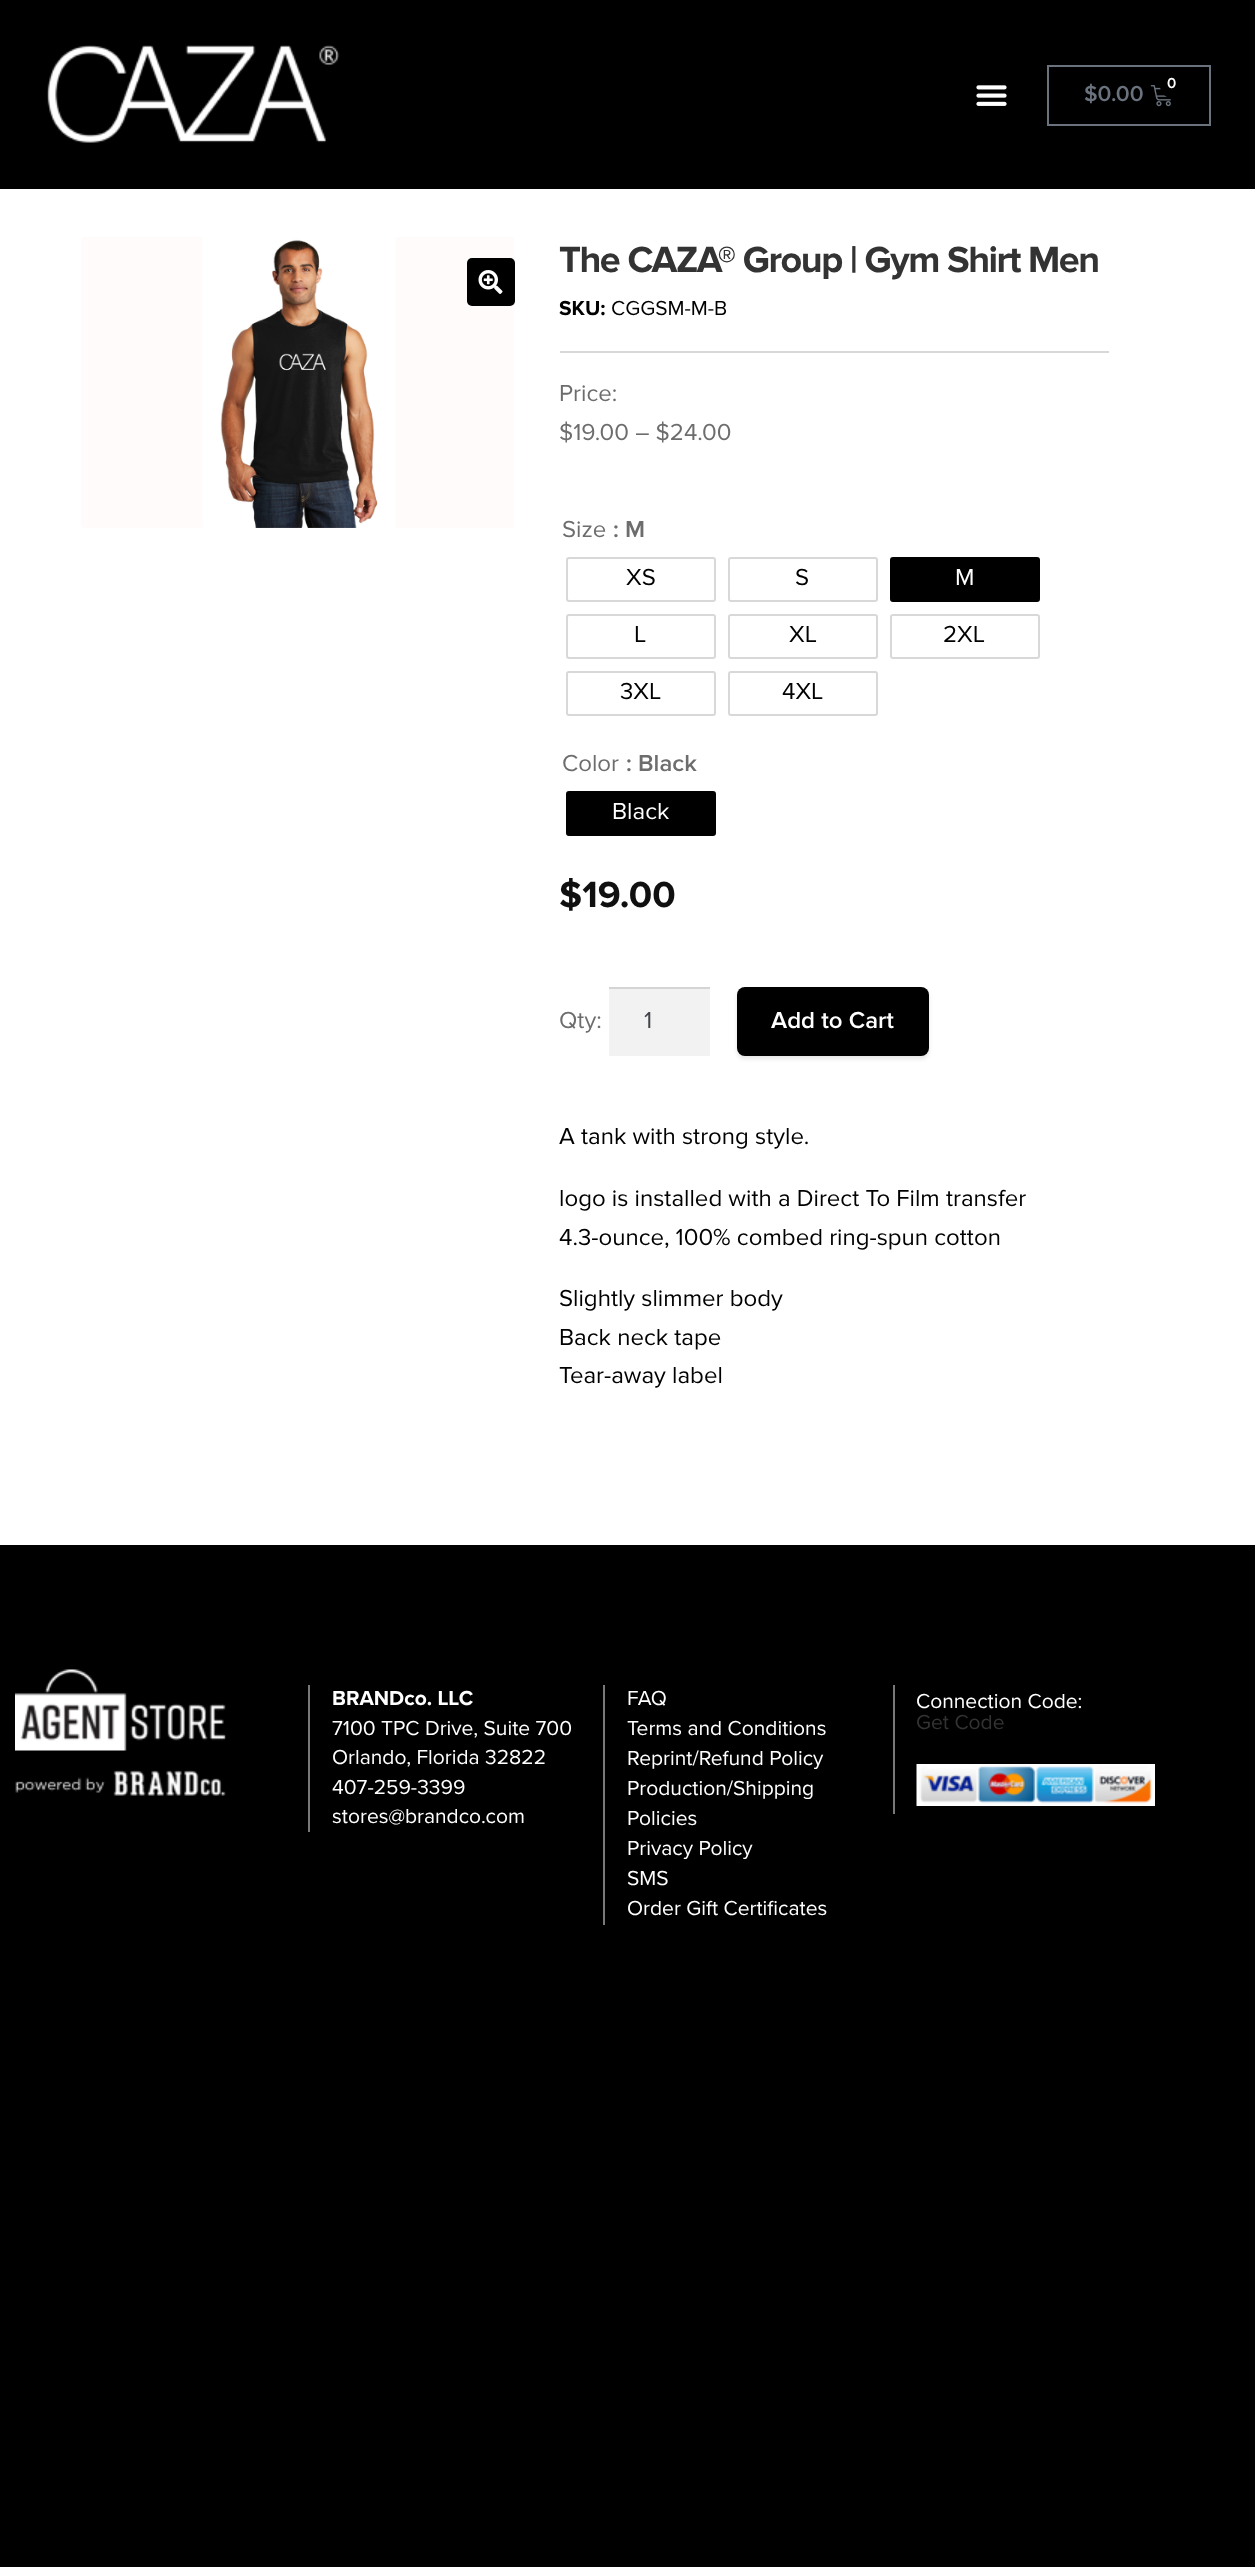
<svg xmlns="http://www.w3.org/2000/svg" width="1255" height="2567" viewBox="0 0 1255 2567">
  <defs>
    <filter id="blur1" x="-50%" y="-200%" width="200%" height="500%"><feGaussianBlur stdDeviation="2"/></filter>
  </defs>
  <rect width="100%" height="100%" fill="#000000"/>
  <rect x="0" y="189" width="1255" height="1356" fill="#ffffff"/>
  <image x="47" y="45" width="293" height="98" href="img1.png"/>
  <image x="976" y="85" width="31" height="21" href="img2.png"/>
  <rect x="1048" y="66" width="162" height="59" fill="none" stroke="#69727d" stroke-width="2"/>
  <text x="1084" y="101" font-family="Proxima Nova" font-size="22.5" font-weight="600" fill="#69727d">$0.00</text>
  <image x="1150" y="85" width="21" height="22" href="img3.png"/>
  <circle cx="1172" cy="86" r="12" fill="#000000"/>
  <text x="1167" y="88" font-family="Proxima Nova" font-size="15" font-weight="600" fill="#ffffff">0</text>
  <image x="81" y="237" width="433" height="291" href="img4.png"/>
  <rect x="467" y="258" width="48" height="48" rx="5" fill="#000000"/>
  <image x="478" y="270" width="25" height="24" href="img5.png"/>
  <text x="559" y="272" font-family="Proxima Nova" font-size="37.75" font-weight="bold" letter-spacing="-1.5" fill="#333333">The CAZA® Group | Gym Shirt Men</text>
  <rect x="560" y="351" width="549" height="2" fill="#d8d8d8"/>
  <text x="559" y="315" font-family="Proxima Nova" font-size="21" font-weight="bold" fill="#000000">SKU:</text>
  <text x="611" y="315" font-family="Proxima Nova" font-size="21" fill="#000000">CGGSM-M-B</text>
  <text x="559" y="401" font-family="Proxima Nova" font-size="24" fill="#6d6d6d">Price:</text>
  <text x="559" y="440" font-family="Proxima Nova" font-size="24" fill="#6d6d6d">$19.00 – $24.00</text>
  <text x="562" y="537" font-family="Proxima Nova" font-size="24" fill="#6d6d6d">Size</text>
  <text x="613" y="537" font-family="Proxima Nova" font-size="24" font-weight="600" fill="#6d6d6d">: M</text>
  <rect x="567" y="558" width="148" height="43" rx="2" fill="none" stroke="#d8d8d8" stroke-width="2"/>
  <text x="626" y="585" font-family="Proxima Nova" font-size="24" fill="#000000">XS</text>
  <rect x="729" y="558" width="148" height="43" rx="2" fill="none" stroke="#d8d8d8" stroke-width="2"/>
  <text x="795" y="585" font-family="Proxima Nova" font-size="24" fill="#000000">S</text>
  <rect x="891" y="558" width="148" height="43" rx="2" fill="#000000" stroke="#000000" stroke-width="2"/>
  <text x="955" y="585" font-family="Proxima Nova" font-size="24" fill="#ffffff">M</text>
  <rect x="567" y="615" width="148" height="43" rx="2" fill="none" stroke="#d8d8d8" stroke-width="2"/>
  <text x="634" y="642" font-family="Proxima Nova" font-size="24" fill="#000000">L</text>
  <rect x="729" y="615" width="148" height="43" rx="2" fill="none" stroke="#d8d8d8" stroke-width="2"/>
  <text x="789" y="642" font-family="Proxima Nova" font-size="24" fill="#000000">XL</text>
  <rect x="891" y="615" width="148" height="43" rx="2" fill="none" stroke="#d8d8d8" stroke-width="2"/>
  <text x="943" y="642" font-family="Proxima Nova" font-size="24" fill="#000000">2XL</text>
  <rect x="567" y="672" width="148" height="43" rx="2" fill="none" stroke="#d8d8d8" stroke-width="2"/>
  <text x="620" y="699" font-family="Proxima Nova" font-size="24" fill="#000000">3XL</text>
  <rect x="729" y="672" width="148" height="43" rx="2" fill="none" stroke="#d8d8d8" stroke-width="2"/>
  <text x="782" y="699" font-family="Proxima Nova" font-size="24" fill="#000000">4XL</text>
  <text x="562" y="771" font-family="Proxima Nova" font-size="24" fill="#6d6d6d">Color</text>
  <text x="626" y="771" font-family="Proxima Nova" font-size="24" font-weight="600" fill="#6d6d6d">: Black</text>
  <rect x="567" y="792" width="148" height="43" rx="2" fill="#000000" stroke="#000000" stroke-width="2"/>
  <text x="612" y="819" font-family="Proxima Nova" font-size="24" fill="#ffffff">Black</text>
  <text x="559" y="907" font-family="Proxima Nova" font-size="37.75" font-weight="bold" fill="#101010">$19.00</text>
  <text x="559" y="1028" font-family="Proxima Nova" font-size="24" fill="#6d6d6d">Qty:</text>
  <rect x="609" y="989" width="101" height="67" fill="#f2f2f2"/>
  <rect x="609" y="987" width="101" height="2" fill="#d4d4d4"/>
  <text x="644" y="1028" font-family="Proxima Nova" font-size="24" fill="#43454b">1</text>
  <rect x="737" y="990" width="192" height="69" rx="8" fill="#000000" fill-opacity="0.1" filter="url(#blur1)"/>
  <rect x="737" y="987" width="192" height="69" rx="8" fill="#000000"/>
  <text x="771" y="1028" font-family="Proxima Nova" font-size="24" font-weight="600" fill="#ffffff">Add to Cart</text>
  <text x="559" y="1144" font-family="Proxima Nova" font-size="24" fill="#000000">A tank with strong style.</text>
  <text x="559" y="1206" font-family="Proxima Nova" font-size="24" fill="#000000">logo is installed with a Direct To Film transfer</text>
  <text x="559" y="1245" font-family="Proxima Nova" font-size="24" fill="#000000">4.3-ounce, 100% combed ring-spun cotton</text>
  <text x="559" y="1306" font-family="Proxima Nova" font-size="24" fill="#000000">Slightly slimmer body</text>
  <text x="559" y="1345" font-family="Proxima Nova" font-size="24" fill="#000000">Back neck tape</text>
  <text x="559" y="1383" font-family="Proxima Nova" font-size="24" fill="#000000">Tear-away label</text>
  <image x="15" y="1669" width="211" height="127" href="img6.png"/>
  <rect x="308" y="1685" width="2" height="147" fill="#787878"/>
  <text x="332" y="1705" font-family="'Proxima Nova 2'" font-size="21" font-weight="bold" fill="#ffffff">BRANDco. LLC</text>
  <text x="332" y="1735" font-family="'Proxima Nova 2'" font-size="21" fill="#ffffff">7100 TPC Drive, Suite 700</text>
  <text x="332" y="1764" font-family="'Proxima Nova 2'" font-size="21" fill="#ffffff">Orlando, Florida 32822</text>
  <text x="332" y="1794" font-family="'Proxima Nova 2'" font-size="21" fill="#ffffff">407-259-3399</text>
  <text x="332" y="1823" font-family="'Proxima Nova 2'" font-size="21" fill="#ffffff">stores@brandco.com</text>
  <rect x="603" y="1685" width="2" height="240" fill="#787878"/>
  <text x="627" y="1705" font-family="'Proxima Nova 2'" font-size="21" fill="#ffffff">FAQ</text>
  <text x="627" y="1735" font-family="'Proxima Nova 2'" font-size="21" fill="#ffffff">Terms and Conditions</text>
  <text x="627" y="1765" font-family="'Proxima Nova 2'" font-size="21" fill="#ffffff">Reprint/Refund Policy</text>
  <text x="627" y="1795" font-family="'Proxima Nova 2'" font-size="21" fill="#ffffff">Production/Shipping</text>
  <text x="627" y="1825" font-family="'Proxima Nova 2'" font-size="21" fill="#ffffff">Policies</text>
  <text x="627" y="1855" font-family="'Proxima Nova 2'" font-size="21" fill="#ffffff">Privacy Policy</text>
  <text x="627" y="1885" font-family="'Proxima Nova 2'" font-size="21" fill="#ffffff">SMS</text>
  <text x="627" y="1915" font-family="'Proxima Nova 2'" font-size="21" fill="#ffffff">Order Gift Certificates</text>
  <rect x="893" y="1685" width="2" height="129" fill="#787878"/>
  <text x="916" y="1708" font-family="'Proxima Nova 2'" font-size="21" fill="#ffffff">Connection Code:</text>
  <text x="916" y="1729" font-family="'Proxima Nova 2'" font-size="21" fill="#333333">Get Code</text>
  <image x="916" y="1764" width="239" height="42" href="img7.png"/>
</svg>
